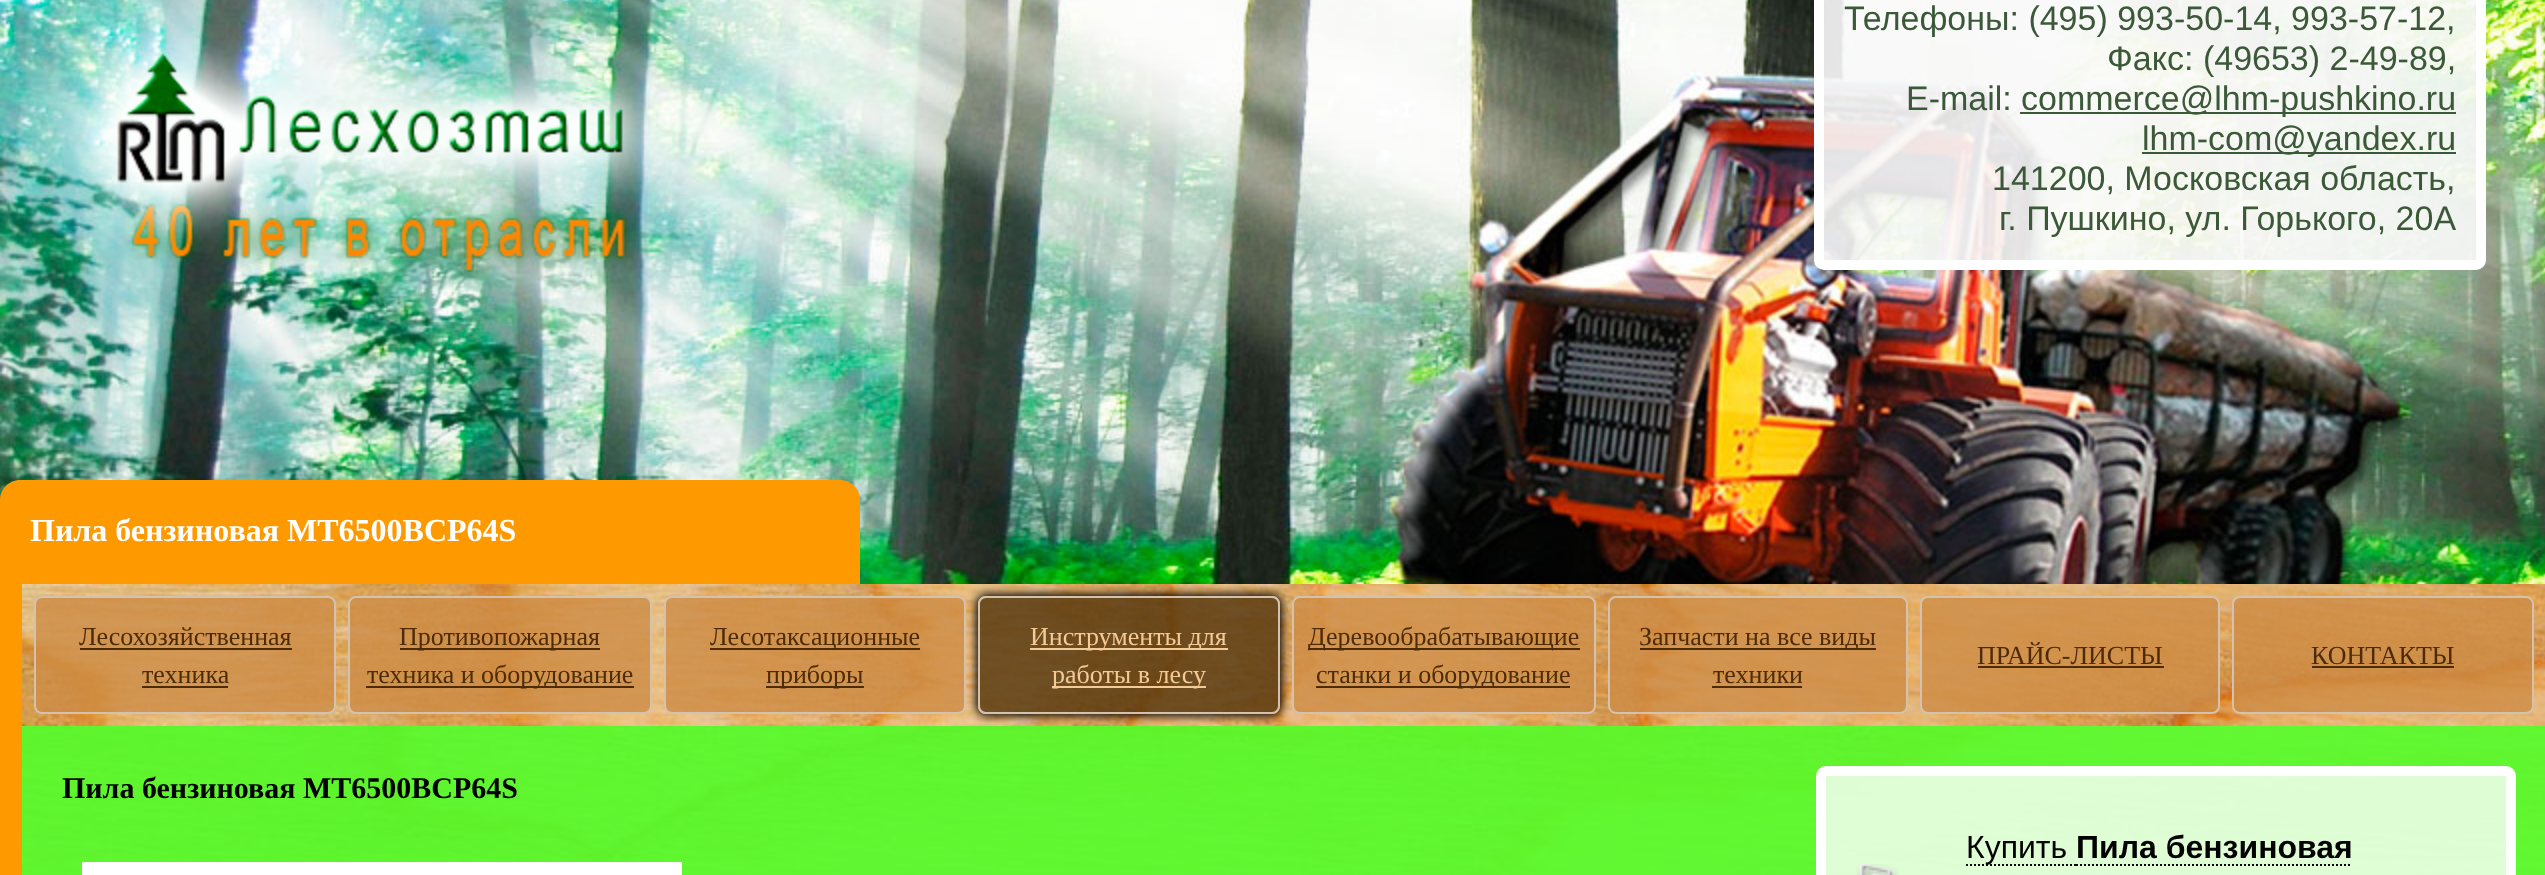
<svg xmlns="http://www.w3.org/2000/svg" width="2545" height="875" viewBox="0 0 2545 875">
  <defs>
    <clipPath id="clip1"><path d="M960 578H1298V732H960ZM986 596H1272C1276.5 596 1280 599.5 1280 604V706C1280 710.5 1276.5 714 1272 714H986C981.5 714 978 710.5 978 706V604C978 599.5 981.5 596 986 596Z" clip-rule="evenodd"/></clipPath>
    <filter id="blur1" x="-50%" y="-200%" width="200%" height="500%"><feGaussianBlur stdDeviation="5"/></filter>
  </defs>
  <rect width="100%" height="100%" fill="#ff9900"/>
  <image x="0" y="0" width="2545" height="584" href="img2.png"/>
  <image x="53" y="2" width="615" height="279" href="img1.png"/>
  <rect x="1819" y="-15" width="662" height="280" rx="5" fill="#fafafa" fill-opacity="0.9" stroke="#ffffff" stroke-width="10"/>
  <text x="1844" y="30" font-family="Liberation Sans" font-size="34" fill="#3b5938">Телефоны: (495) 993-50-14, 993-57-12,</text>
  <text x="2107" y="70" font-family="Liberation Sans" font-size="34" fill="#3b5938">Факс: (49653) 2-49-89,</text>
  <text x="1906" y="110" font-family="Liberation Sans" font-size="34" fill="#3b5938">E-mail:</text>
  <rect x="2020" y="112" width="436" height="2" fill="#3b5938"/>
  <text x="2021" y="110" font-family="Liberation Sans" font-size="34" fill="#3b5938">commerce@lhm-pushkino.ru</text>
  <rect x="2142" y="152" width="314" height="2" fill="#3b5938"/>
  <text x="2142" y="150" font-family="Liberation Sans" font-size="34" fill="#3b5938">lhm-com@yandex.ru</text>
  <text x="1992" y="190" font-family="Liberation Sans" font-size="34" fill="#3b5938">141200, Московская область,</text>
  <text x="1999" y="230" font-family="Liberation Sans" font-size="34" fill="#3b5938">г. Пушкино, ул. Горького, 20А</text>
  <path d="M20 480H840C851 480 860 489 860 500V584H0V500C0 489 9 480 20 480Z" fill="#ff9900"/>
  <text x="30" y="541" font-family="Liberation Serif" font-size="32" font-weight="bold" fill="#ffffff">Пила бензиновая MT6500BCP64S</text>
  <image x="22" y="584" width="2523" height="142" href="img3.png"/>
  <rect x="35" y="597" width="300" height="116" rx="7" fill="#cd8c46" fill-opacity="0.8" stroke="#d3c2af" stroke-width="2"/>
  <text x="79" y="645" font-family="Liberation Serif" font-size="26" fill="#4d2b06">Лесохозяйственная</text>
  <rect x="80" y="648" width="212" height="2" fill="#4d2b06"/>
  <text x="142" y="683" font-family="Liberation Serif" font-size="26" fill="#4d2b06">техника</text>
  <rect x="142" y="686" width="86" height="2" fill="#4d2b06"/>
  <rect x="349" y="597" width="302" height="116" rx="7" fill="#cd8c46" fill-opacity="0.8" stroke="#d3c2af" stroke-width="2"/>
  <rect x="400" y="648" width="200" height="2" fill="#4d2b06"/>
  <text x="399" y="645" font-family="Liberation Serif" font-size="26" fill="#4d2b06">Противопожарная</text>
  <rect x="366" y="686" width="268" height="2" fill="#4d2b06"/>
  <text x="367" y="683" font-family="Liberation Serif" font-size="26" fill="#4d2b06">техника и оборудование</text>
  <rect x="665" y="597" width="300" height="116" rx="7" fill="#cd8c46" fill-opacity="0.8" stroke="#d3c2af" stroke-width="2"/>
  <rect x="710" y="648" width="210" height="2" fill="#4d2b06"/>
  <text x="710" y="645" font-family="Liberation Serif" font-size="26" fill="#4d2b06">Лесотаксационные</text>
  <rect x="766" y="686" width="98" height="2" fill="#4d2b06"/>
  <text x="766" y="683" font-family="Liberation Serif" font-size="26" fill="#4d2b06">приборы</text>
  <image x="22" y="726" width="2523" height="149" href="img4.png"/>
  <rect x="22" y="726" width="1764" height="149" fill="#52ff2b" fill-opacity="0.9"/>
  <g clip-path="url(#clip1)">
    <rect x="976" y="594" width="306" height="122" rx="10" fill="#000000" filter="url(#blur1)"/>
  </g>
  <rect x="979" y="597" width="300" height="116" rx="7" fill="#50320a" fill-opacity="0.8" stroke="#d3c2af" stroke-width="2"/>
  <rect x="1030" y="648" width="198" height="2" fill="#f4ca96"/>
  <text x="1030" y="645" font-family="Liberation Serif" font-size="26" fill="#f4ca96">Инструменты для</text>
  <rect x="1052" y="686" width="154" height="2" fill="#f4ca96"/>
  <text x="1052" y="683" font-family="Liberation Serif" font-size="26" fill="#f4ca96">работы в лесу</text>
  <rect x="1293" y="597" width="302" height="116" rx="7" fill="#cd8c46" fill-opacity="0.8" stroke="#d3c2af" stroke-width="2"/>
  <rect x="1308" y="648" width="272" height="2" fill="#4d2b06"/>
  <text x="1308" y="645" font-family="Liberation Serif" font-size="26" fill="#4d2b06">Деревообрабатывающие</text>
  <rect x="1316" y="686" width="254" height="2" fill="#4d2b06"/>
  <text x="1316" y="683" font-family="Liberation Serif" font-size="26" fill="#4d2b06">станки и оборудование</text>
  <rect x="1609" y="597" width="298" height="116" rx="7" fill="#cd8c46" fill-opacity="0.8" stroke="#d3c2af" stroke-width="2"/>
  <rect x="1640" y="648" width="236" height="2" fill="#4d2b06"/>
  <text x="1639" y="645" font-family="Liberation Serif" font-size="26" fill="#4d2b06">Запчасти на все виды</text>
  <text x="1713" y="683" font-family="Liberation Serif" font-size="26" fill="#4d2b06">техники</text>
  <rect x="1712" y="686" width="90" height="2" fill="#4d2b06"/>
  <rect x="1921" y="597" width="298" height="116" rx="7" fill="#cd8c46" fill-opacity="0.8" stroke="#d3c2af" stroke-width="2"/>
  <text x="1977" y="664" font-family="Liberation Serif" font-size="26" fill="#4d2b06">ПРАЙС-ЛИСТЫ</text>
  <rect x="1978" y="666" width="186" height="2" fill="#4d2b06"/>
  <rect x="2233" y="597" width="300" height="116" rx="7" fill="#cd8c46" fill-opacity="0.8" stroke="#d3c2af" stroke-width="2"/>
  <text x="2311" y="664" font-family="Liberation Serif" font-size="26" fill="#4d2b06">КОНТАКТЫ</text>
  <rect x="2312" y="666" width="142" height="2" fill="#4d2b06"/>
  <text x="62" y="798" font-family="Liberation Serif" font-size="30" font-weight="bold" fill="#000000">Пила бензиновая MT6500BCP64S</text>
  <rect x="82" y="862" width="600" height="13" fill="#ffffff"/>
  <rect x="1786" y="726" width="759" height="149" fill="#52ff2b" fill-opacity="0.9"/>
  <rect x="1821" y="771" width="690" height="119" rx="5" fill="#ffffff" fill-opacity="0.8" stroke="#ffffff" stroke-width="10"/>
  <image x="1856" y="864" width="43" height="11" href="img5.png"/>
  <path d="M1966 865H2076" fill="none" stroke="#000000" stroke-width="2" stroke-dasharray="2 2"/>
  <text x="1966" y="858" font-family="Liberation Sans" font-size="32" fill="#000000">Купить</text>
  <text x="2076" y="858" font-family="Liberation Sans" font-size="32" font-weight="bold" fill="#000000">Пила бензиновая</text>
  <path d="M2076 865H2352" fill="none" stroke="#000000" stroke-width="2" stroke-dasharray="2 2"/>
</svg>
